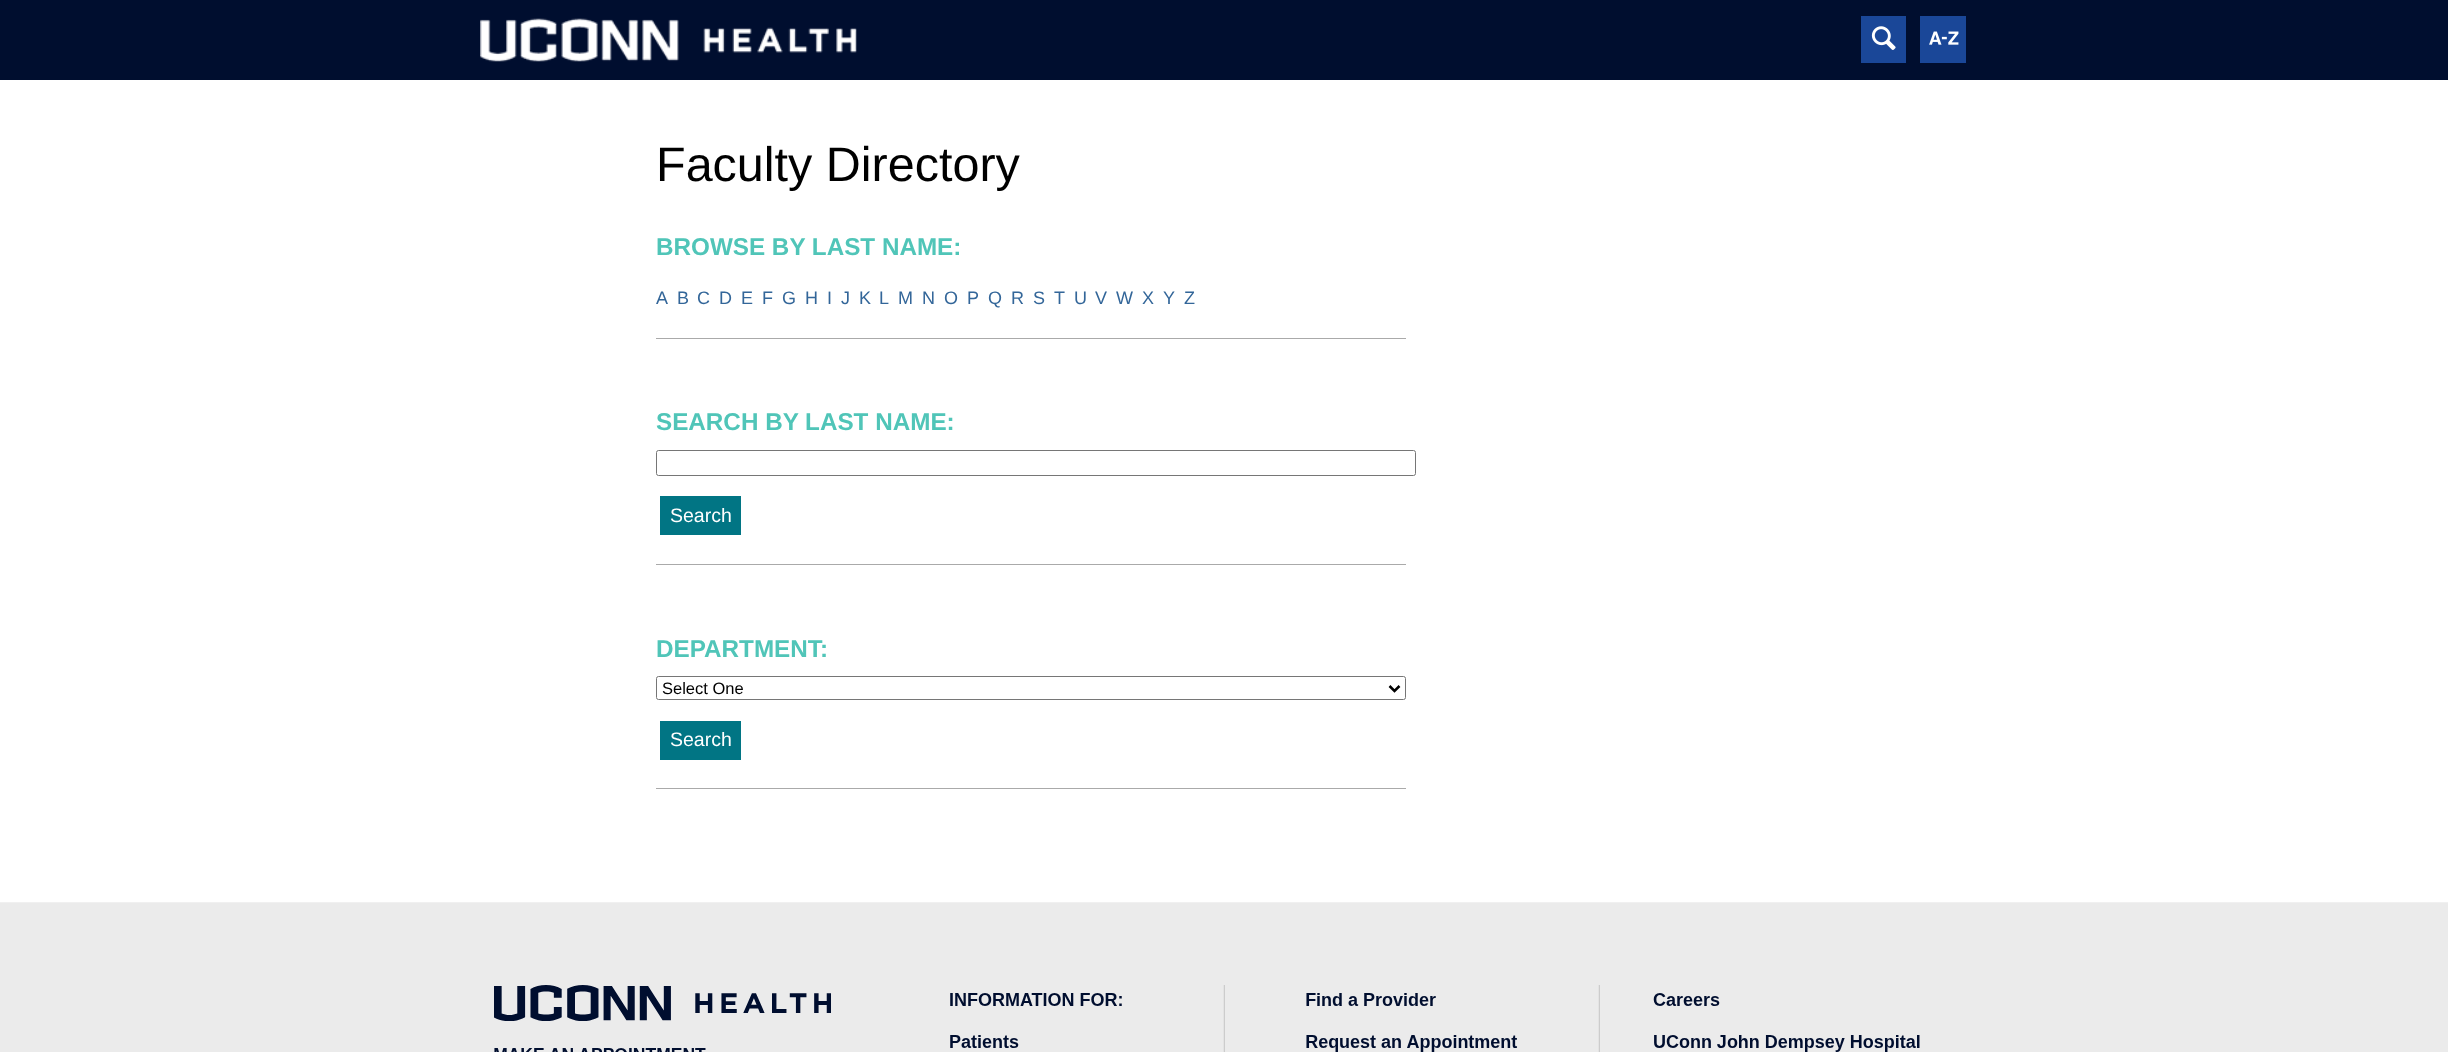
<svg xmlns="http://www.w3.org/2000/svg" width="2448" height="1052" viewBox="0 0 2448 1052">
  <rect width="100%" height="100%" fill="#000e2f"/>
  <image x="480" y="18" width="377" height="44" href="img1.png"/>
  <rect x="1861" y="16" width="45" height="47" fill="#1a4798"/>
  <image x="1871" y="26" width="25" height="24" href="img2.png"/>
  <rect x="1920" y="16" width="46" height="47" fill="#1a4798"/>
  <image x="1929" y="31" width="30" height="14" href="img3.png"/>
  <rect x="0" y="80" width="2448" height="783" fill="#ffffff"/>
  <text x="656" y="181" font-family="Liberation Sans" font-size="48.5" fill="#000000">Faculty Directory</text>
  <rect x="656" y="338" width="750" height="1" fill="#aaaaaa"/>
  <text x="656" y="255" font-family="Liberation Sans" font-size="24.25" font-weight="bold" fill="#50c5b8">BROWSE BY LAST NAME:</text>
  <text x="656" y="304" font-family="Liberation Sans" font-size="18" fill="#336699">A</text>
  <text x="677" y="304" font-family="Liberation Sans" font-size="18" fill="#336699">B</text>
  <text x="697" y="304" font-family="Liberation Sans" font-size="18" fill="#336699">C</text>
  <text x="719" y="304" font-family="Liberation Sans" font-size="18" fill="#336699">D</text>
  <text x="741" y="304" font-family="Liberation Sans" font-size="18" fill="#336699">E</text>
  <text x="762" y="304" font-family="Liberation Sans" font-size="18" fill="#336699">F</text>
  <text x="782" y="304" font-family="Liberation Sans" font-size="18" fill="#336699">G</text>
  <text x="805" y="304" font-family="Liberation Sans" font-size="18" fill="#336699">H</text>
  <text x="827" y="304" font-family="Liberation Sans" font-size="18" fill="#336699">I</text>
  <text x="841" y="304" font-family="Liberation Sans" font-size="18" fill="#336699">J</text>
  <text x="859" y="304" font-family="Liberation Sans" font-size="18" fill="#336699">K</text>
  <text x="879" y="304" font-family="Liberation Sans" font-size="18" fill="#336699">L</text>
  <text x="898" y="304" font-family="Liberation Sans" font-size="18" fill="#336699">M</text>
  <text x="922" y="304" font-family="Liberation Sans" font-size="18" fill="#336699">N</text>
  <text x="944" y="304" font-family="Liberation Sans" font-size="18" fill="#336699">O</text>
  <text x="967" y="304" font-family="Liberation Sans" font-size="18" fill="#336699">P</text>
  <text x="988" y="304" font-family="Liberation Sans" font-size="18" fill="#336699">Q</text>
  <text x="1011" y="304" font-family="Liberation Sans" font-size="18" fill="#336699">R</text>
  <text x="1033" y="304" font-family="Liberation Sans" font-size="18" fill="#336699">S</text>
  <text x="1054" y="304" font-family="Liberation Sans" font-size="18" fill="#336699">T</text>
  <text x="1074" y="304" font-family="Liberation Sans" font-size="18" fill="#336699">U</text>
  <text x="1095" y="304" font-family="Liberation Sans" font-size="18" fill="#336699">V</text>
  <text x="1116" y="304" font-family="Liberation Sans" font-size="18" fill="#336699">W</text>
  <text x="1142" y="304" font-family="Liberation Sans" font-size="18" fill="#336699">X</text>
  <text x="1163" y="304" font-family="Liberation Sans" font-size="18" fill="#336699">Y</text>
  <text x="1184" y="304" font-family="Liberation Sans" font-size="18" fill="#336699">Z</text>
  <rect x="656" y="564" width="750" height="1" fill="#aaaaaa"/>
  <text x="656" y="430" font-family="Liberation Sans" font-size="24.25" font-weight="bold" fill="#50c5b8">SEARCH BY LAST NAME:</text>
  <rect x="656.5" y="450.5" width="759" height="25" rx="2" fill="none" stroke="#767676"/>
  <rect x="660" y="496" width="81" height="39" fill="#017584"/>
  <text x="670" y="522" font-family="Liberation Sans" font-size="19.5" fill="#ffffff">Search</text>
  <rect x="656" y="788" width="750" height="1" fill="#aaaaaa"/>
  <text x="656" y="657" font-family="Liberation Sans" font-size="24.25" font-weight="bold" fill="#50c5b8">DEPARTMENT:</text>
  <rect x="656.5" y="676.5" width="749" height="23" rx="2" fill="none" stroke="#767676"/>
  <path d="M1389.5 686L1394.5 691L1399.5 686" fill="none" stroke="#000000" stroke-width="2.5"/>
  <text x="662" y="694" font-family="Liberation Sans" font-size="16.5" fill="#000000">Select One</text>
  <rect x="660" y="721" width="81" height="39" fill="#017584"/>
  <text x="670" y="746" font-family="Liberation Sans" font-size="19.5" fill="#ffffff">Search</text>
  <image x="0" y="863" width="2448" height="189" href="img4.png"/>
</svg>
